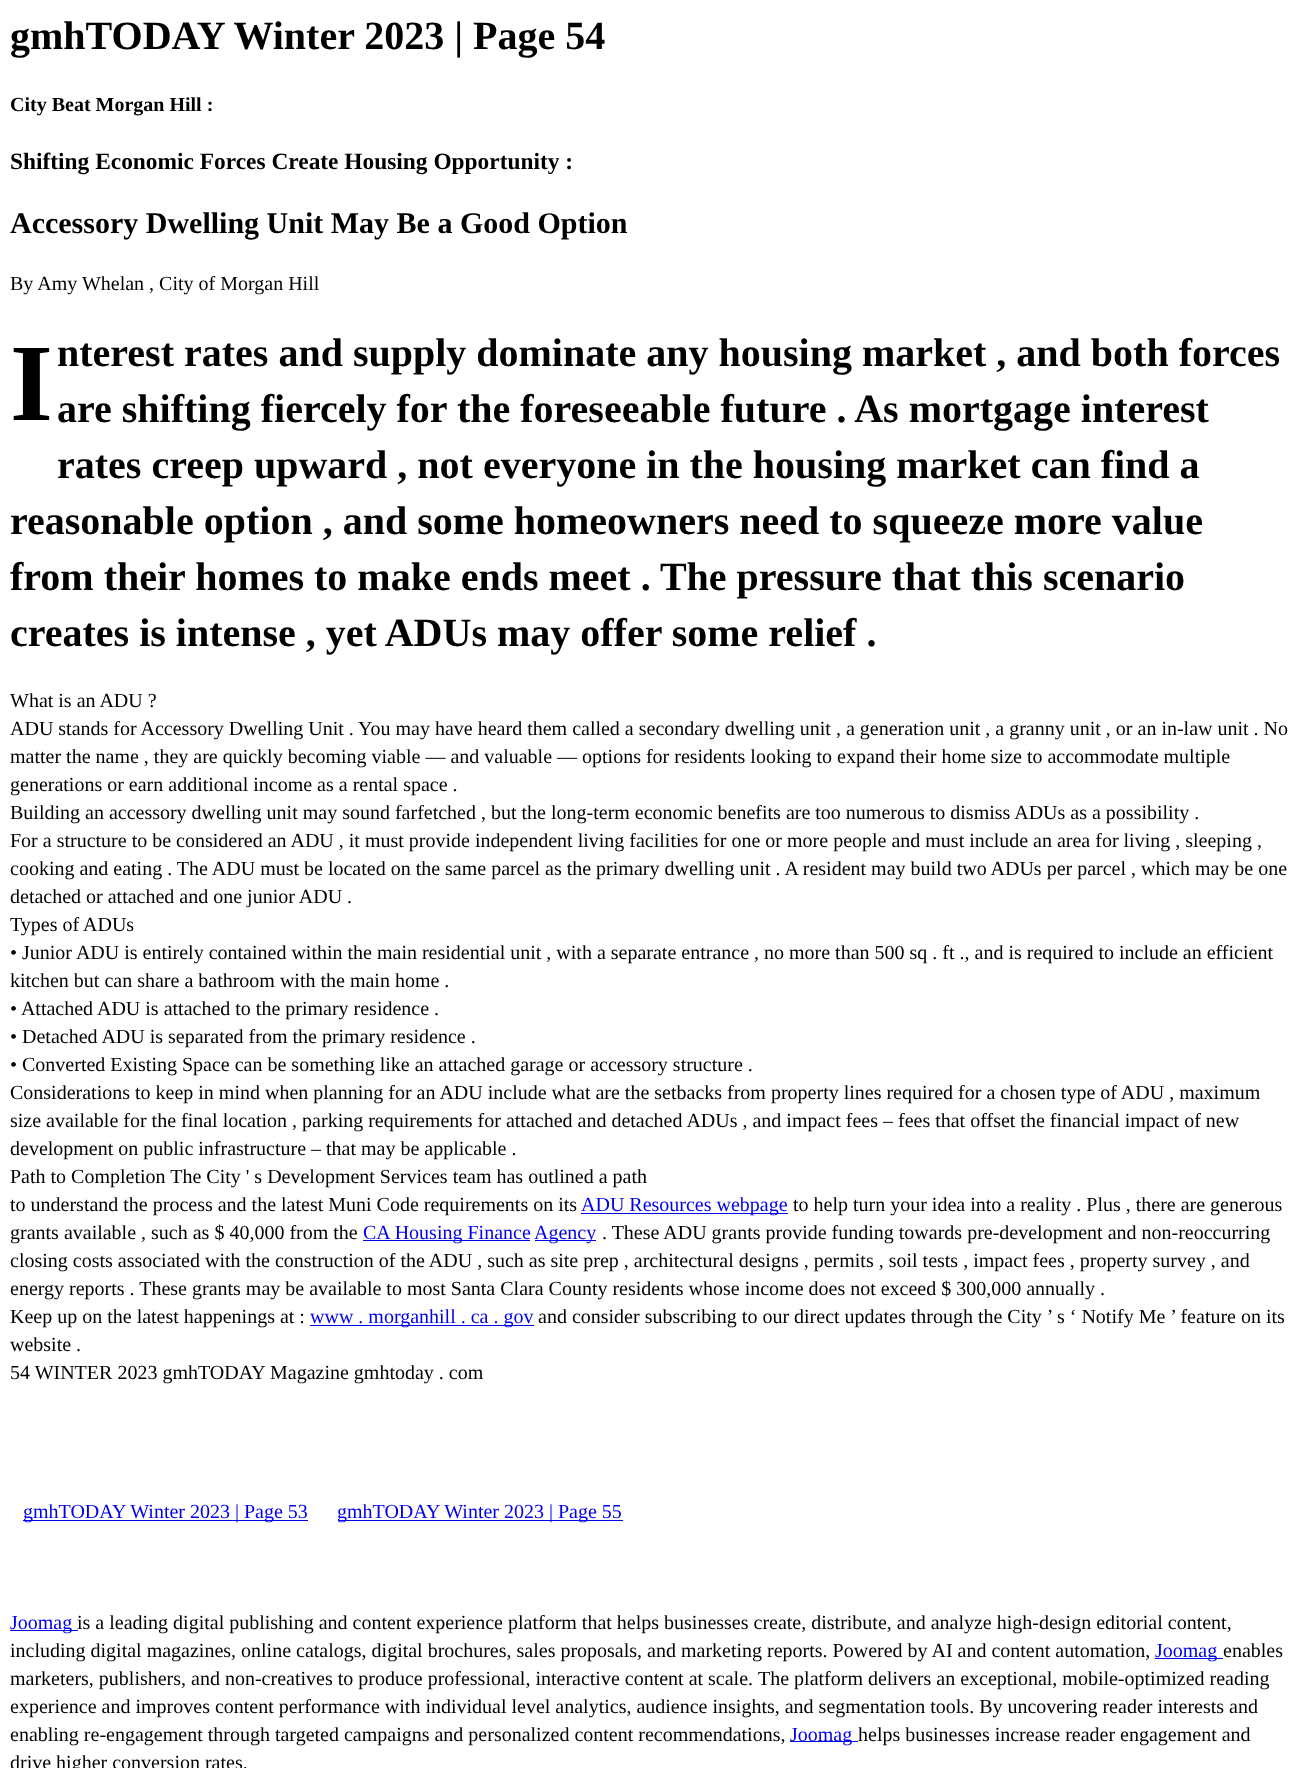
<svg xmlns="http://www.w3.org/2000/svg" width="1304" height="1768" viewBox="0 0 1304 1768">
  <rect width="100%" height="100%" fill="#ffffff"/>
  <text x="10" y="49" font-family="Liberation Serif" font-size="40" font-weight="bold" fill="#000000">gmhTODAY Winter 2023 | Page 54</text>
  <text x="10" y="111" font-family="Liberation Serif" font-size="20" font-weight="bold" fill="#000000">City Beat Morgan Hill :</text>
  <text x="10" y="169" font-family="Liberation Serif" font-size="23.4" font-weight="bold" fill="#000000">Shifting Economic Forces Create Housing Opportunity :</text>
  <text x="10" y="233" font-family="Liberation Serif" font-size="30" font-weight="bold" fill="#000000">Accessory Dwelling Unit May Be a Good Option</text>
  <text x="10" y="290" font-family="Liberation Serif" font-size="20" fill="#000000">By Amy Whelan , City of Morgan Hill</text>
  <text x="10" y="420" font-family="Liberation Serif" font-size="110" font-weight="bold" fill="#000000">I</text>
  <text x="57" y="366" font-family="Liberation Serif" font-size="40" font-weight="bold" fill="#000000">nterest rates and supply dominate any housing market , and both forces</text>
  <text x="57" y="422" font-family="Liberation Serif" font-size="40" font-weight="bold" fill="#000000">are shifting fiercely for the foreseeable future . As mortgage interest</text>
  <text x="57" y="478" font-family="Liberation Serif" font-size="40" font-weight="bold" fill="#000000">rates creep upward , not everyone in the housing market can find a</text>
  <text x="10" y="534" font-family="Liberation Serif" font-size="40" font-weight="bold" fill="#000000">reasonable option , and some homeowners need to squeeze more value</text>
  <text x="10" y="590" font-family="Liberation Serif" font-size="40" font-weight="bold" fill="#000000">from their homes to make ends meet . The pressure that this scenario</text>
  <text x="10" y="646" font-family="Liberation Serif" font-size="40" font-weight="bold" fill="#000000">creates is intense , yet ADUs may offer some relief .</text>
  <text x="10" y="707" font-family="Liberation Serif" font-size="20" fill="#000000">What is an ADU ?</text>
  <text x="10" y="735" font-family="Liberation Serif" font-size="20" fill="#000000">ADU stands for Accessory Dwelling Unit . You may have heard them called a secondary dwelling unit , a generation unit , a granny unit , or an in-law unit . No</text>
  <text x="10" y="763" font-family="Liberation Serif" font-size="20" fill="#000000">matter the name , they are quickly becoming viable — and valuable — options for residents looking to expand their home size to accommodate multiple</text>
  <text x="10" y="791" font-family="Liberation Serif" font-size="20" fill="#000000">generations or earn additional income as a rental space .</text>
  <text x="10" y="819" font-family="Liberation Serif" font-size="20" fill="#000000">Building an accessory dwelling unit may sound farfetched , but the long-term economic benefits are too numerous to dismiss ADUs as a possibility .</text>
  <text x="10" y="847" font-family="Liberation Serif" font-size="20" fill="#000000">For a structure to be considered an ADU , it must provide independent living facilities for one or more people and must include an area for living , sleeping ,</text>
  <text x="10" y="875" font-family="Liberation Serif" font-size="20" fill="#000000">cooking and eating . The ADU must be located on the same parcel as the primary dwelling unit . A resident may build two ADUs per parcel , which may be one</text>
  <text x="10" y="903" font-family="Liberation Serif" font-size="20" fill="#000000">detached or attached and one junior ADU .</text>
  <text x="10" y="931" font-family="Liberation Serif" font-size="20" fill="#000000">Types of ADUs</text>
  <text x="10" y="959" font-family="Liberation Serif" font-size="20" fill="#000000">• Junior ADU is entirely contained within the main residential unit , with a separate entrance , no more than 500 sq . ft ., and is required to include an efficient</text>
  <text x="10" y="987" font-family="Liberation Serif" font-size="20" fill="#000000">kitchen but can share a bathroom with the main home .</text>
  <text x="10" y="1015" font-family="Liberation Serif" font-size="20" fill="#000000">• Attached ADU is attached to the primary residence .</text>
  <text x="10" y="1043" font-family="Liberation Serif" font-size="20" fill="#000000">• Detached ADU is separated from the primary residence .</text>
  <text x="10" y="1071" font-family="Liberation Serif" font-size="20" fill="#000000">• Converted Existing Space can be something like an attached garage or accessory structure .</text>
  <text x="10" y="1099" font-family="Liberation Serif" font-size="20" fill="#000000">Considerations to keep in mind when planning for an ADU include what are the setbacks from property lines required for a chosen type of ADU , maximum</text>
  <text x="10" y="1127" font-family="Liberation Serif" font-size="20" fill="#000000">size available for the final location , parking requirements for attached and detached ADUs , and impact fees – fees that offset the financial impact of new</text>
  <text x="10" y="1155" font-family="Liberation Serif" font-size="20" fill="#000000">development on public infrastructure – that may be applicable .</text>
  <text x="10" y="1183" font-family="Liberation Serif" font-size="20" fill="#000000">Path to Completion The City ' s Development Services team has outlined a path</text>
  <text x="10" y="1211" font-family="Liberation Serif" font-size="20" fill="#000000">to understand the process and the latest Muni Code requirements on its</text>
  <rect x="581" y="1213" width="207" height="1" fill="#0000ee"/>
  <text x="581" y="1211" font-family="Liberation Serif" font-size="20" fill="#0000ee">ADU Resources webpage</text>
  <text x="793" y="1211" font-family="Liberation Serif" font-size="20" fill="#000000">to help turn your idea into a reality . Plus , there are generous</text>
  <text x="10" y="1239" font-family="Liberation Serif" font-size="20" fill="#000000">grants available , such as $ 40,000 from the</text>
  <rect x="363" y="1240" width="167" height="1" fill="#0000ee"/>
  <text x="363" y="1239" font-family="Liberation Serif" font-size="20" fill="#0000ee">CA Housing Finance</text>
  <rect x="535" y="1240" width="61" height="1" fill="#0000ee"/>
  <text x="534" y="1239" font-family="Liberation Serif" font-size="20" fill="#0000ee">Agency</text>
  <text x="602" y="1239" font-family="Liberation Serif" font-size="20" fill="#000000">. These ADU grants provide funding towards pre-development and non-reoccurring</text>
  <text x="10" y="1267" font-family="Liberation Serif" font-size="20" fill="#000000">closing costs associated with the construction of the ADU , such as site prep , architectural designs , permits , soil tests , impact fees , property survey , and</text>
  <text x="10" y="1295" font-family="Liberation Serif" font-size="20" fill="#000000">energy reports . These grants may be available to most Santa Clara County residents whose income does not exceed $ 300,000 annually .</text>
  <text x="10" y="1323" font-family="Liberation Serif" font-size="20" fill="#000000">Keep up on the latest happenings at :</text>
  <rect x="310" y="1325" width="224" height="1" fill="#0000ee"/>
  <text x="310" y="1323" font-family="Liberation Serif" font-size="20" fill="#0000ee">www . morganhill . ca . gov</text>
  <text x="538" y="1323" font-family="Liberation Serif" font-size="20" fill="#000000">and consider subscribing to our direct updates through the City ’ s ‘ Notify Me ’ feature on its</text>
  <text x="10" y="1351" font-family="Liberation Serif" font-size="20" fill="#000000">website .</text>
  <text x="10" y="1379" font-family="Liberation Serif" font-size="20" fill="#000000">54 WINTER 2023 gmhTODAY Magazine gmhtoday . com</text>
  <rect x="23" y="1520" width="285" height="1" fill="#0000ee"/>
  <text x="23" y="1518" font-family="Liberation Serif" font-size="20" fill="#0000ee">gmhTODAY Winter 2023 | Page 53</text>
  <rect x="338" y="1520" width="285" height="1" fill="#0000ee"/>
  <text x="337" y="1518" font-family="Liberation Serif" font-size="20" fill="#0000ee">gmhTODAY Winter 2023 | Page 55</text>
  <rect x="10" y="1630" width="68" height="1" fill="#0000ee"/>
  <text x="10" y="1629" font-family="Liberation Serif" font-size="20" fill="#0000ee">Joomag</text>
  <text x="77" y="1629" font-family="Liberation Serif" font-size="20" fill="#000000">is a leading digital publishing and content experience platform that helps businesses create, distribute, and analyze high-design editorial content,</text>
  <text x="10" y="1657" font-family="Liberation Serif" font-size="20" fill="#000000">including digital magazines, online catalogs, digital brochures, sales proposals, and marketing reports. Powered by AI and content automation,</text>
  <rect x="1155" y="1658" width="68" height="1" fill="#0000ee"/>
  <text x="1155" y="1657" font-family="Liberation Serif" font-size="20" fill="#0000ee">Joomag</text>
  <text x="1223" y="1657" font-family="Liberation Serif" font-size="20" fill="#000000">enables</text>
  <text x="10" y="1685" font-family="Liberation Serif" font-size="20" fill="#000000">marketers, publishers, and non-creatives to produce professional, interactive content at scale.</text>
  <text x="758" y="1685" font-family="Liberation Serif" font-size="20" fill="#000000">The platform delivers an exceptional, mobile-optimized reading</text>
  <text x="10" y="1713" font-family="Liberation Serif" font-size="20" fill="#000000">experience and improves content performance with individual level analytics, audience insights, and segmentation tools. By uncovering reader interests and</text>
  <text x="10" y="1741" font-family="Liberation Serif" font-size="20" fill="#000000">enabling re-engagement through targeted campaigns and personalized content recommendations,</text>
  <rect x="790" y="1741" width="68" height="1" fill="#0000ee"/>
  <text x="790" y="1741" font-family="Liberation Serif" font-size="20" fill="#0000ee">Joomag</text>
  <text x="858" y="1741" font-family="Liberation Serif" font-size="20" fill="#000000">helps businesses increase reader engagement and</text>
  <text x="10" y="1769" font-family="Liberation Serif" font-size="20" fill="#000000">drive higher conversion rates.</text>
</svg>
